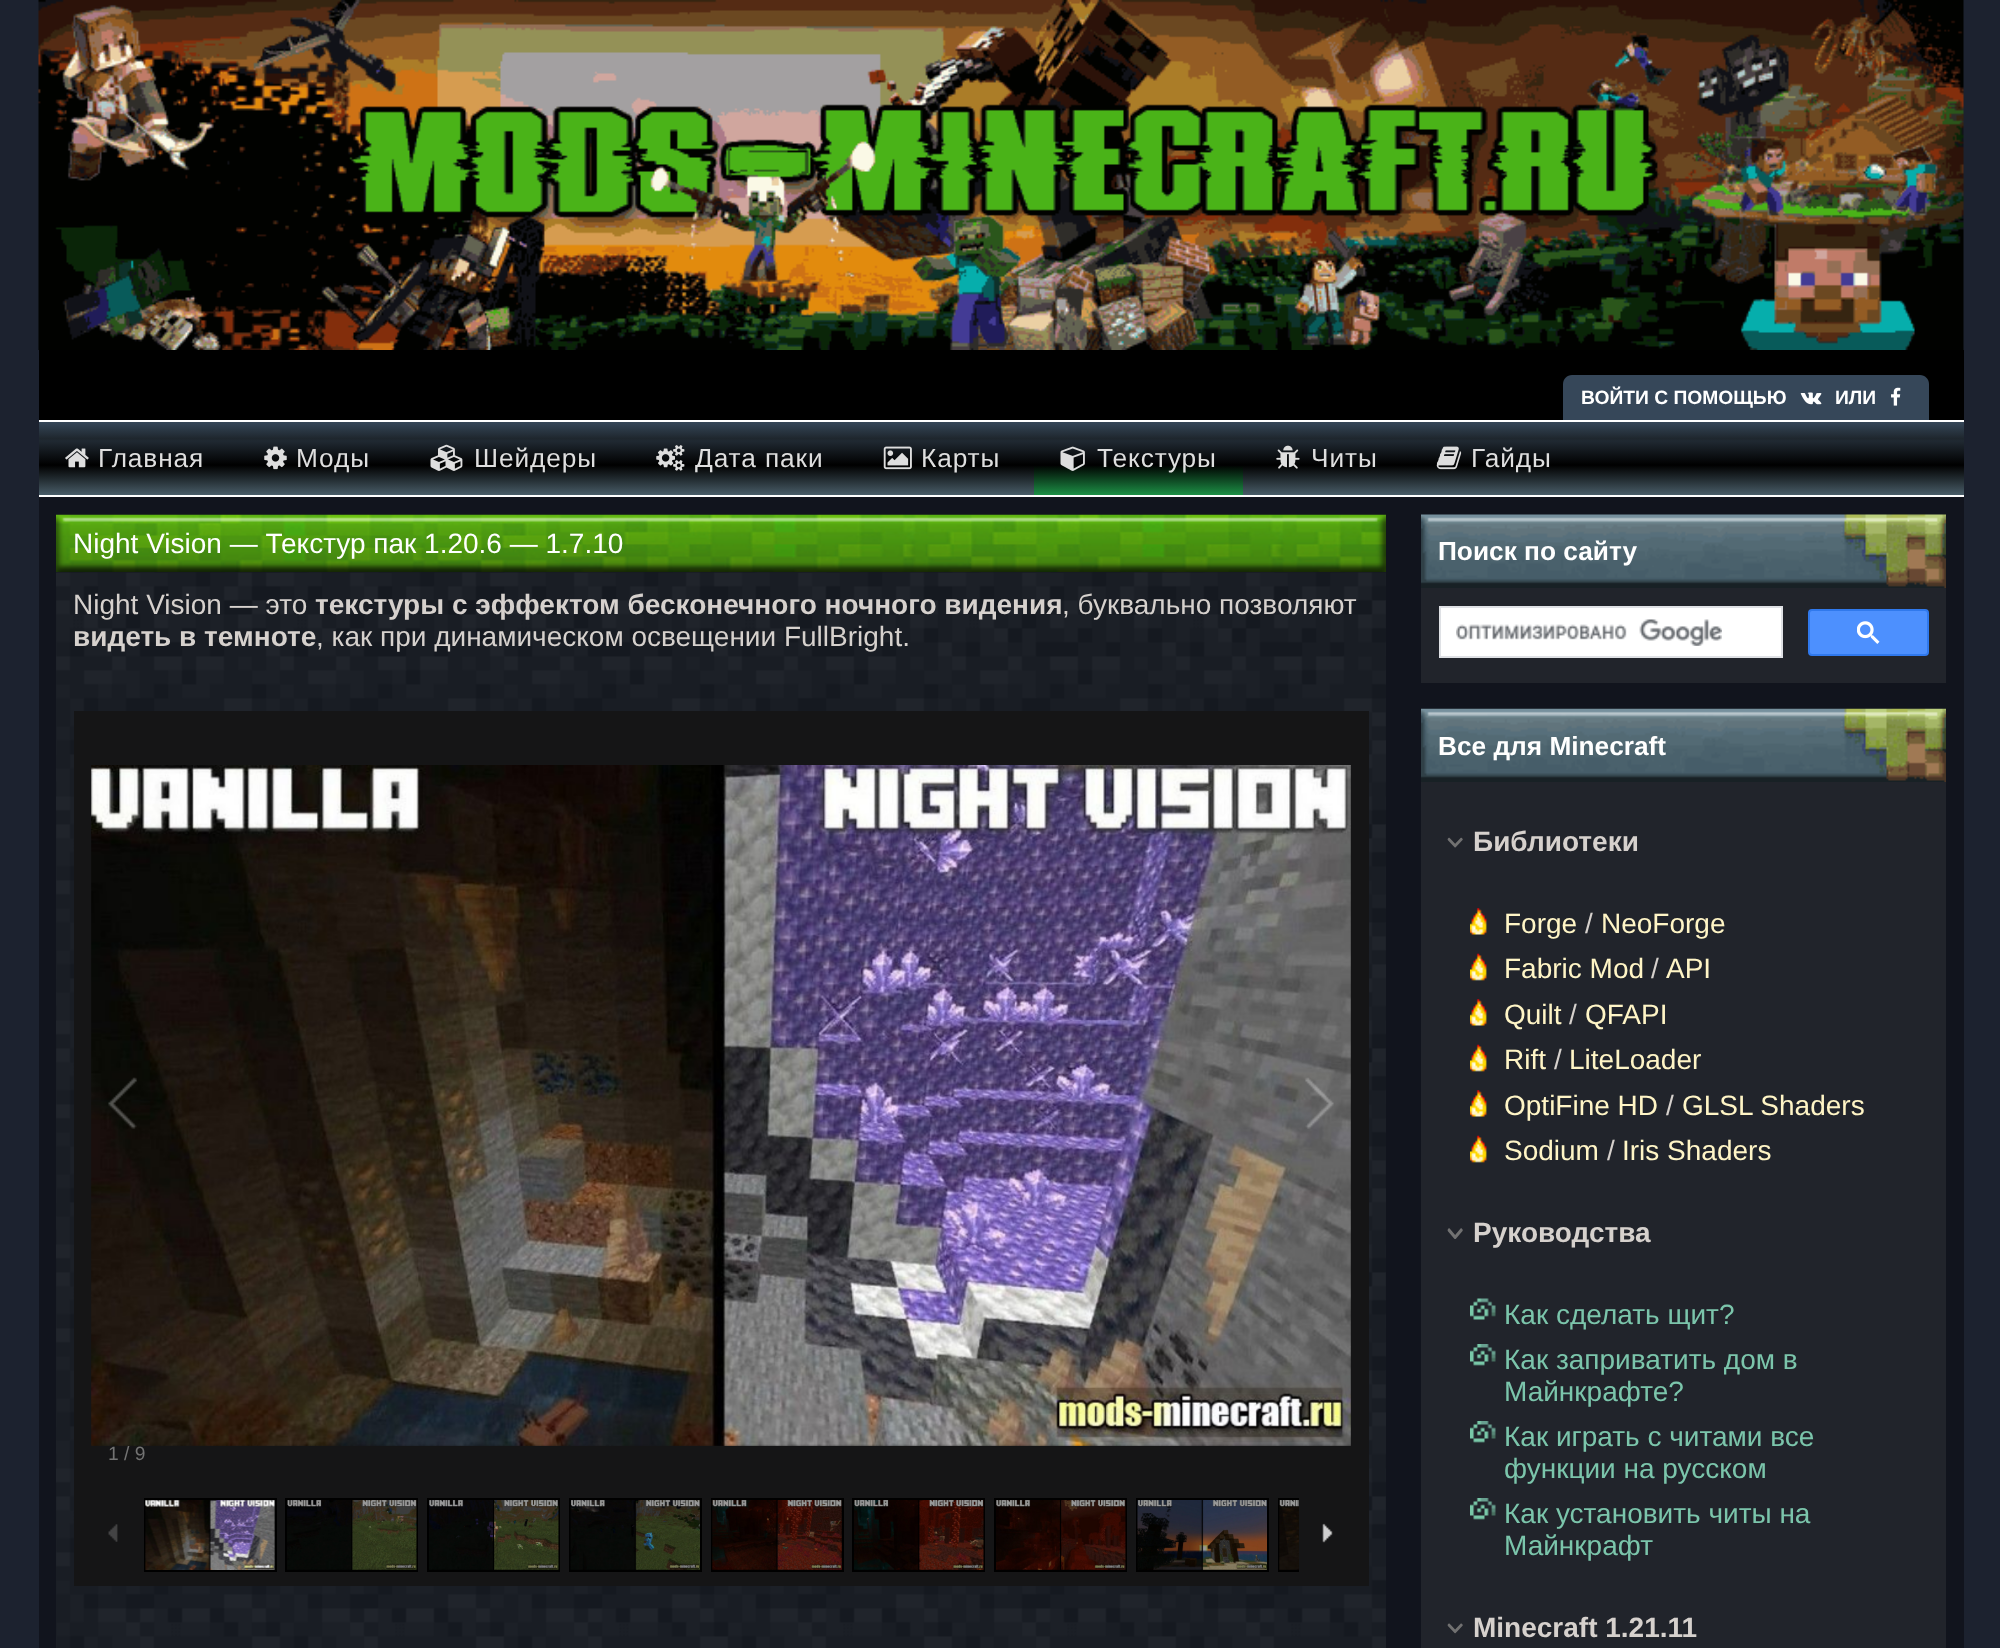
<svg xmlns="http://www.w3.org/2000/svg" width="2000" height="1648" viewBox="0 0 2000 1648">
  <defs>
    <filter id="blur1" x="-50%" y="-200%" width="200%" height="500%"><feGaussianBlur stdDeviation="6"/></filter>
    <linearGradient id="g1" gradientUnits="userSpaceOnUse" x1="1001" y1="422" x2="1001" y2="495"><stop offset="0" stop-color="#364759"/><stop offset="0.23" stop-color="#1e262d"/><stop offset="0.26" stop-color="#202932"/><stop offset="0.59" stop-color="#000000"/><stop offset="1" stop-color="#495d68"/></linearGradient>
    <linearGradient id="g2" gradientUnits="userSpaceOnUse" x1="1138" y1="422" x2="1138" y2="495"><stop offset="0" stop-color="#364759"/><stop offset="0.23" stop-color="#1e262d"/><stop offset="0.26" stop-color="#202932"/><stop offset="0.59" stop-color="#000000"/><stop offset="1" stop-color="#1d9046"/></linearGradient>
  </defs>
  <rect width="100%" height="100%" fill="#1c222f"/>
  <image x="38" y="0" width="1926" height="350" href="img1.png"/>
  <rect x="39" y="350" width="1925" height="70" fill="#000000"/>
  <rect x="1563" y="378" width="366" height="61" rx="9" fill="#000000" fill-opacity="0.7" filter="url(#blur1)"/>
  <path d="M1572 375H1920C1925 375 1929 379 1929 384V436H1563V384C1563 379 1567 375 1572 375Z" fill="#364759"/>
  <text x="1581" y="404" font-family="Liberation Sans" font-size="19.25" font-weight="bold" fill="#ffffff">ВОЙТИ С ПОМОЩЬЮ</text>
  <image x="1800" y="392" width="22" height="13" href="img2.png"/>
  <text x="1835" y="404" font-family="Liberation Sans" font-size="19.25" font-weight="bold" fill="#ffffff">ИЛИ</text>
  <image x="1891" y="387" width="10" height="19" href="img3.png"/>
  <rect x="39" y="422" width="1925" height="73" fill="url(#g1)"/>
  <rect x="39" y="420" width="1925" height="2" fill="#ffffff"/>
  <rect x="39" y="495" width="1925" height="2" fill="#ffffff"/>
  <image x="65" y="448" width="24" height="20" href="img4.png"/>
  <text x="98" y="467" font-family="Liberation Sans" font-size="26.25" letter-spacing="0.9" fill="#dedede">Главная</text>
  <image x="264" y="446" width="23" height="24" href="img5.png"/>
  <text x="296" y="467" font-family="Liberation Sans" font-size="26.25" letter-spacing="0.9" fill="#dedede">Моды</text>
  <image x="430" y="444" width="33" height="27" href="img6.png"/>
  <text x="474" y="467" font-family="Liberation Sans" font-size="26.25" letter-spacing="0.9" fill="#dedede">Шейдеры</text>
  <image x="656" y="445" width="29" height="26" href="img7.png"/>
  <text x="695" y="467" font-family="Liberation Sans" font-size="26.25" letter-spacing="0.9" fill="#dedede">Дата паки</text>
  <image x="883" y="446" width="29" height="24" href="img8.png"/>
  <text x="921" y="467" font-family="Liberation Sans" font-size="26.25" letter-spacing="0.9" fill="#dedede">Карты</text>
  <rect x="1034" y="466" width="209" height="29" fill="url(#g2)"/>
  <image x="1060" y="446" width="25" height="25" href="img9.png"/>
  <text x="1097" y="467" font-family="Liberation Sans" font-size="26.25" letter-spacing="0.9" fill="#dedede">Текстуры</text>
  <image x="1276" y="445" width="24" height="24" href="img10.png"/>
  <text x="1311" y="467" font-family="Liberation Sans" font-size="26.25" letter-spacing="0.9" fill="#dedede">Читы</text>
  <image x="1436" y="446" width="26" height="24" href="img11.png"/>
  <text x="1471" y="467" font-family="Liberation Sans" font-size="26.25" letter-spacing="0.9" fill="#dedede">Гайды</text>
  <rect x="39" y="497" width="1925" height="1151" fill="#11141d"/>
  <image x="56" y="514" width="1330" height="58" href="img12.png"/>
  <text x="73" y="553" font-family="Liberation Sans" font-size="28" fill="#ffffff">Night Vision — Текстур пак 1.20.6 — 1.7.10</text>
  <rect x="56" y="572" width="1330" height="1076" fill="#0e121a"/>
  <image x="56" y="572" width="1330" height="1076" href="img13.png"/>
  <text x="73" y="614" font-family="Liberation Sans" font-size="28" fill="#d6d1cd">Night Vision — это</text>
  <text x="315" y="614" font-family="Liberation Sans" font-size="28" font-weight="bold" fill="#d6d1cd">текстуры с эффектом бесконечного ночного видения</text>
  <text x="1062" y="614" font-family="Liberation Sans" font-size="28" fill="#d6d1cd">, буквально позволяют</text>
  <text x="73" y="646" font-family="Liberation Sans" font-size="28" font-weight="bold" fill="#d6d1cd">видеть в темноте</text>
  <text x="316" y="646" font-family="Liberation Sans" font-size="28" fill="#d6d1cd">, как при динамическом освещении FullBright.</text>
  <rect x="74" y="711" width="1295" height="875" fill="#151516"/>
  <image x="91" y="765" width="1260" height="681" href="img14.png"/>
  <image x="108" y="1077" width="29" height="52" href="img15.png"/>
  <image x="1305" y="1077" width="29" height="52" href="img16.png"/>
  <text x="108" y="1460" font-family="Liberation Sans" font-size="19.25" fill="#737373">1 / 9</text>
  <image x="108" y="1524" width="10" height="18" href="img17.png"/>
  <rect x="144" y="1498" width="133" height="74" fill="#000000"/>
  <image x="145" y="1500" width="130" height="70" href="img18.png"/>
  <rect x="285" y="1498" width="133" height="74" fill="#000000"/>
  <image x="287" y="1500" width="130" height="70" href="img19.png"/>
  <rect x="427" y="1498" width="133" height="74" fill="#000000"/>
  <image x="429" y="1500" width="130" height="70" href="img20.png"/>
  <rect x="569" y="1498" width="133" height="74" fill="#000000"/>
  <image x="570" y="1500" width="130" height="70" href="img21.png"/>
  <rect x="711" y="1498" width="133" height="74" fill="#000000"/>
  <image x="712" y="1500" width="130" height="70" href="img22.png"/>
  <rect x="852" y="1498" width="133" height="74" fill="#000000"/>
  <image x="854" y="1500" width="130" height="70" href="img23.png"/>
  <rect x="994" y="1498" width="133" height="74" fill="#000000"/>
  <image x="996" y="1500" width="130" height="70" href="img24.png"/>
  <rect x="1136" y="1498" width="133" height="74" fill="#000000"/>
  <image x="1137" y="1500" width="130" height="70" href="img25.png"/>
  <rect x="1278" y="1498" width="21" height="74" fill="#000000"/>
  <image x="1279" y="1500" width="20" height="70" href="img26.png"/>
  <image x="1322" y="1523" width="11" height="20" href="img27.png"/>
  <image x="1421" y="514" width="525" height="74" href="img28.png"/>
  <text x="1438" y="560" font-family="Liberation Sans" font-size="26.25" font-weight="bold" fill="#ffffff">Поиск по сайту</text>
  <rect x="1421" y="588" width="525" height="95" fill="#21242b"/>
  <rect x="1440" y="607" width="342" height="50" fill="#ffffff" stroke="#dfe1e5" stroke-width="2"/>
  <image x="1456" y="619" width="266" height="27" href="img29.png"/>
  <rect x="1809" y="610" width="119" height="45" rx="3" fill="#4d90fe" stroke="#3079ed" stroke-width="2"/>
  <image x="1857" y="621" width="23" height="23" href="img30.png"/>
  <image x="1421" y="708" width="525" height="74" href="img31.png"/>
  <text x="1438" y="755" font-family="Liberation Sans" font-size="26.25" font-weight="bold" fill="#ffffff">Все для Minecraft</text>
  <rect x="1421" y="782" width="525" height="866" fill="#21242b"/>
  <image x="1447" y="837" width="16" height="11" href="img32.png"/>
  <text x="1473" y="851" font-family="Liberation Sans" font-size="28" font-weight="bold" fill="#d6d1cd">Библиотеки</text>
  <image x="1470" y="908" width="17" height="27" href="img33.png"/>
  <text x="1504" y="933" font-family="Liberation Sans" font-size="28" fill="#fff5c6">Forge</text>
  <text x="1585" y="933" font-family="Liberation Sans" font-size="28" fill="#d6d1cd">/</text>
  <text x="1601" y="933" font-family="Liberation Sans" font-size="28" fill="#fff5c6">NeoForge</text>
  <image x="1470" y="953" width="17" height="28" href="img34.png"/>
  <text x="1504" y="978" font-family="Liberation Sans" font-size="28" fill="#fff5c6">Fabric Mod</text>
  <text x="1651" y="978" font-family="Liberation Sans" font-size="28" fill="#d6d1cd">/</text>
  <text x="1666" y="978" font-family="Liberation Sans" font-size="28" fill="#fff5c6">API</text>
  <image x="1470" y="999" width="17" height="27" href="img33.png"/>
  <text x="1504" y="1024" font-family="Liberation Sans" font-size="28" fill="#fff5c6">Quilt</text>
  <text x="1569" y="1024" font-family="Liberation Sans" font-size="28" fill="#d6d1cd">/</text>
  <text x="1585" y="1024" font-family="Liberation Sans" font-size="28" fill="#fff5c6">QFAPI</text>
  <image x="1470" y="1044" width="17" height="28" href="img34.png"/>
  <text x="1504" y="1069" font-family="Liberation Sans" font-size="28" fill="#fff5c6">Rift</text>
  <text x="1554" y="1069" font-family="Liberation Sans" font-size="28" fill="#d6d1cd">/</text>
  <text x="1569" y="1069" font-family="Liberation Sans" font-size="28" fill="#fff5c6">LiteLoader</text>
  <image x="1470" y="1090" width="17" height="27" href="img33.png"/>
  <text x="1504" y="1115" font-family="Liberation Sans" font-size="28" fill="#fff5c6">OptiFine HD</text>
  <text x="1666" y="1115" font-family="Liberation Sans" font-size="28" fill="#d6d1cd">/</text>
  <text x="1682" y="1115" font-family="Liberation Sans" font-size="28" fill="#fff5c6">GLSL Shaders</text>
  <image x="1470" y="1135" width="17" height="28" href="img34.png"/>
  <text x="1504" y="1160" font-family="Liberation Sans" font-size="28" fill="#fff5c6">Sodium</text>
  <text x="1607" y="1160" font-family="Liberation Sans" font-size="28" fill="#d6d1cd">/</text>
  <text x="1622" y="1160" font-family="Liberation Sans" font-size="28" fill="#fff5c6">Iris Shaders</text>
  <image x="1447" y="1228" width="16" height="11" href="img35.png"/>
  <text x="1473" y="1242" font-family="Liberation Sans" font-size="28" font-weight="bold" fill="#d6d1cd">Руководства</text>
  <image x="1470" y="1298" width="26" height="22" href="img36.png"/>
  <text x="1504" y="1324" font-family="Liberation Sans" font-size="28" fill="#7bc5ab">Как сделать щит?</text>
  <image x="1470" y="1344" width="26" height="22" href="img37.png"/>
  <text x="1504" y="1369" font-family="Liberation Sans" font-size="28" fill="#7bc5ab">Как заприватить дом в</text>
  <text x="1504" y="1401" font-family="Liberation Sans" font-size="28" fill="#7bc5ab">Майнкрафте?</text>
  <image x="1470" y="1421" width="26" height="22" href="img37.png"/>
  <text x="1504" y="1446" font-family="Liberation Sans" font-size="28" fill="#7bc5ab">Как играть с читами все</text>
  <text x="1504" y="1478" font-family="Liberation Sans" font-size="28" fill="#7bc5ab">функции на русском</text>
  <image x="1470" y="1498" width="26" height="22" href="img37.png"/>
  <text x="1504" y="1523" font-family="Liberation Sans" font-size="28" fill="#7bc5ab">Как установить читы на</text>
  <text x="1504" y="1555" font-family="Liberation Sans" font-size="28" fill="#7bc5ab">Майнкрафт</text>
  <image x="1447" y="1623" width="16" height="11" href="img38.png"/>
  <text x="1473" y="1637" font-family="Liberation Sans" font-size="28" font-weight="bold" fill="#d6d1cd">Minecraft 1.21.11</text>
</svg>
